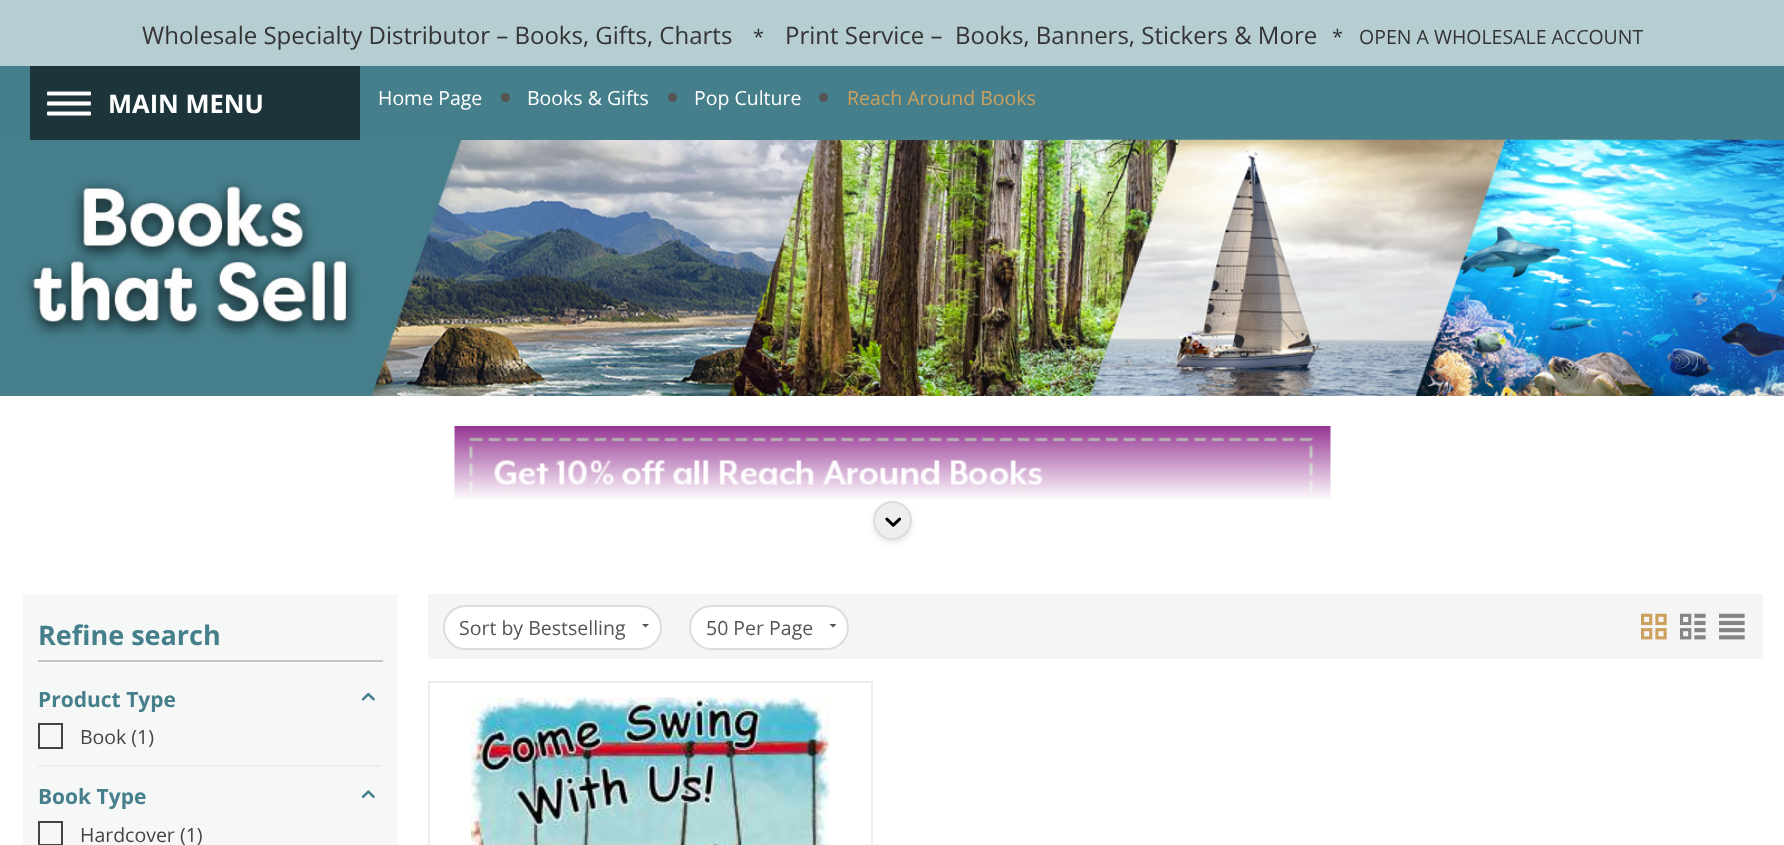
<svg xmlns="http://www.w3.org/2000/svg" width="1784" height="845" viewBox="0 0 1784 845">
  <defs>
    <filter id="blur1" x="-50%" y="-200%" width="200%" height="500%"><feGaussianBlur stdDeviation="4"/></filter>
    <linearGradient id="g1" gradientUnits="userSpaceOnUse" x1="893" y1="501" x2="893" y2="426"><stop offset="0" stop-color="#ffffff"/><stop offset="1" stop-color="#ffffff" stop-opacity="0"/></linearGradient>
  </defs>
  <rect width="100%" height="100%" fill="#ffffff"/>
  <rect x="0" y="0" width="1784" height="66" fill="#b6cdd2"/>
  <text x="142" y="44" font-family="Open Sans" font-size="24" fill="#333333">Wholesale Specialty Distributor – Books, Gifts, Charts</text>
  <text x="753" y="44" font-family="Open Sans" font-size="20" fill="#333333">*</text>
  <text x="785" y="44" font-family="Open Sans" font-size="24" fill="#333333" xml:space="preserve">Print Service –  Books, Banners, Stickers &amp; More</text>
  <text x="1332" y="44" font-family="Open Sans" font-size="20" fill="#333333">*</text>
  <text x="1359" y="44" font-family="Open Sans" font-size="19.5" fill="#333333">OPEN A WHOLESALE ACCOUNT</text>
  <rect x="0" y="66" width="1784" height="74" fill="#467f8c"/>
  <image x="0" y="139" width="1784" height="257" href="img2.png"/>
  <rect x="30" y="66" width="330" height="74" fill="#1d343a"/>
  <image x="47" y="91" width="44" height="25" href="img1.png"/>
  <text x="108" y="113" font-family="Open Sans" font-size="25.5" font-weight="bold" fill="#ffffff">MAIN MENU</text>
  <rect x="460" y="139" width="608" height="1" fill="#467f8c"/>
  <text x="378" y="105" font-family="Open Sans" font-size="19.5" fill="#ffffff">Home Page</text>
  <circle cx="505.5" cy="97.5" r="4.5" fill="#545453"/>
  <text x="527" y="105" font-family="Open Sans" font-size="19.5" fill="#ffffff">Books &amp; Gifts</text>
  <circle cx="672.5" cy="97.5" r="4.5" fill="#545453"/>
  <text x="694" y="105" font-family="Open Sans" font-size="19.5" fill="#ffffff">Pop Culture</text>
  <circle cx="823.5" cy="97.5" r="4.5" fill="#545453"/>
  <text x="847" y="105" font-family="Open Sans" font-size="19.5" fill="#cca05d">Reach Around Books</text>
  <rect x="876" y="507" width="33" height="33" rx="16.5" fill="#000000" fill-opacity="0.2" filter="url(#blur1)"/>
  <image x="454" y="426" width="877" height="75" href="img3.png"/>
  <rect x="454" y="428" width="877" height="73" fill="url(#g1)"/>
  <circle cx="892.5" cy="520.5" r="18.5" fill="#eeeeee" stroke="#dddddd" stroke-width="2"/>
  <image x="885" y="517" width="16" height="10" href="img4.png"/>
  <rect x="23" y="594" width="375" height="251" fill="#f6f7f7"/>
  <rect x="38" y="660" width="345" height="2" fill="#c7c7c7"/>
  <text x="38" y="645" font-family="Open Sans" font-size="27" font-weight="bold" fill="#467f8c">Refine search</text>
  <path d="M37.5 766H382.5" fill="none" stroke="#e0e1e1" stroke-width="1.5" stroke-dasharray="1.5 1.5"/>
  <text x="38" y="707" font-family="Open Sans" font-size="21" font-weight="bold" fill="#467f8c">Product Type</text>
  <image x="361" y="692" width="14" height="9" href="img5.png"/>
  <rect x="39" y="724" width="23" height="24" fill="none" stroke="#434343" stroke-width="2"/>
  <text x="80" y="744" font-family="Open Sans" font-size="19.5" fill="#434343">Book (1)</text>
  <text x="38" y="804" font-family="Open Sans" font-size="21" font-weight="bold" fill="#467f8c">Book Type</text>
  <image x="361" y="790" width="14" height="8" href="img6.png"/>
  <rect x="39" y="822" width="23" height="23" fill="none" stroke="#434343" stroke-width="2"/>
  <text x="80" y="842" font-family="Open Sans" font-size="19.5" fill="#434343">Hardcover (1)</text>
  <rect x="428" y="594" width="1335" height="65" fill="#f5f5f5"/>
  <rect x="444" y="606" width="217" height="43" rx="21.5" fill="#ffffff" stroke="#dddddd" stroke-width="2"/>
  <text x="459" y="635" font-family="Open Sans" font-size="19.5" fill="#545453">Sort by Bestselling</text>
  <path d="M645.5 627.5L642 624H649Z" fill="#545453"/>
  <rect x="690" y="606" width="158" height="43" rx="21.5" fill="#ffffff" stroke="#dddddd" stroke-width="2"/>
  <text x="706" y="635" font-family="Open Sans" font-size="19.5" fill="#545453">50 Per Page</text>
  <path d="M833 627.5L829.5 624H836.5Z" fill="#545453"/>
  <image x="1641" y="613" width="26" height="27" href="img7.png"/>
  <image x="1680" y="613" width="26" height="27" href="img8.png"/>
  <image x="1719" y="613" width="26" height="27" href="img9.png"/>
  <rect x="429" y="682" width="443" height="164" fill="none" stroke="#eeeeee" stroke-width="2"/>
  <image x="471" y="697" width="359" height="148" href="img10.png"/>
</svg>
